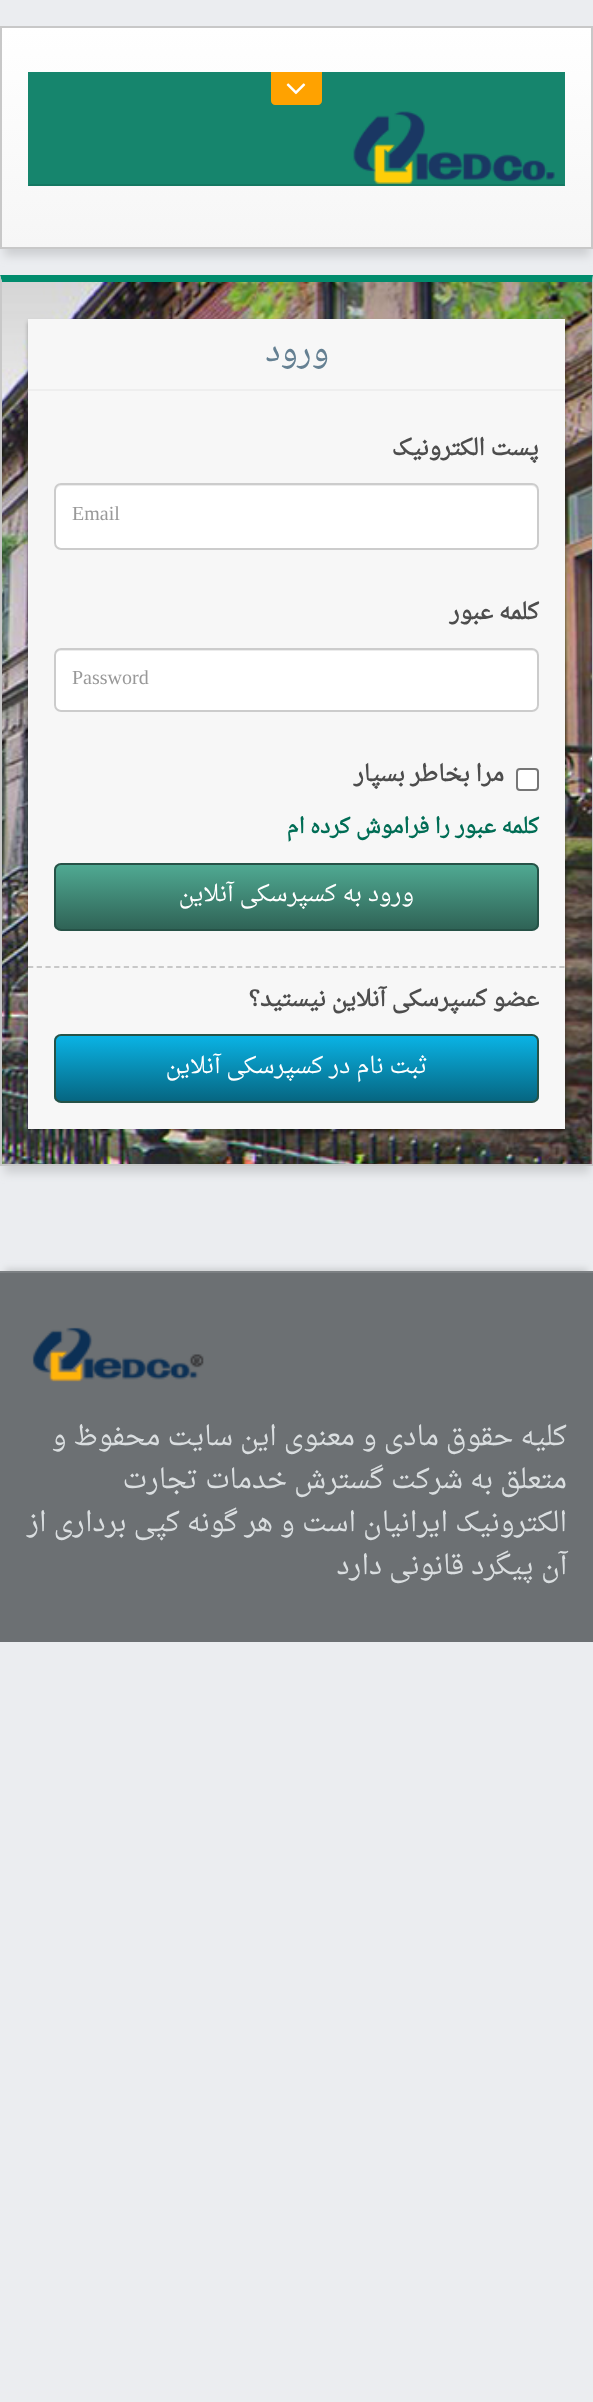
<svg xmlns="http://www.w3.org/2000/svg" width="593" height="2402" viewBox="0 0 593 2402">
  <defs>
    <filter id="blur1" x="-50%" y="-200%" width="200%" height="500%"><feGaussianBlur stdDeviation="5"/></filter>
    <linearGradient id="g1" gradientUnits="userSpaceOnUse" x1="297" y1="28" x2="297" y2="247"><stop offset="0" stop-color="#ffffff"/><stop offset="1" stop-color="#f6f6f6"/></linearGradient>
    <filter id="blur2" x="-50%" y="-200%" width="200%" height="500%"><feGaussianBlur stdDeviation="2"/></filter>
    <clipPath id="clip1"><rect x="54" y="863" width="485" height="68" rx="7"/></clipPath>
    <linearGradient id="g2" gradientUnits="userSpaceOnUse" x1="297" y1="865" x2="297" y2="929"><stop offset="0" stop-color="#4fa992"/><stop offset="1" stop-color="#2f6356"/></linearGradient>
    <clipPath id="clip2"><rect x="54" y="1034" width="485" height="69" rx="7"/></clipPath>
    <linearGradient id="g3" gradientUnits="userSpaceOnUse" x1="297" y1="1036" x2="297" y2="1101"><stop offset="0" stop-color="#0ab3e4"/><stop offset="1" stop-color="#066682"/></linearGradient>
    <filter id="blur3" x="-50%" y="-200%" width="200%" height="500%"><feGaussianBlur stdDeviation="3.5"/></filter>
  </defs>
  <rect width="100%" height="100%" fill="#ebedf0"/>
  <rect x="4" y="40" width="586" height="216" fill="#cdcfd2" filter="url(#blur1)"/>
  <rect x="2" y="28" width="589" height="219" fill="url(#g1)"/>
  <rect x="1" y="27" width="591" height="221" fill="none" stroke="#c8c8c8" stroke-width="2"/>
  <rect x="28" y="72" width="537" height="114" fill="#16856d"/>
  <path d="M565 186H28L30 184H564Z" fill="#147862"/>
  <path d="M271 72H322V101C322 103 320 105 318 105H275C273 105 271 103 271 101Z" fill="#ffa200"/>
  <image x="286" y="83" width="20" height="12" href="img1.png"/>
  <image x="353" y="111" width="202" height="73" href="img2.png"/>
  <rect x="4" y="289" width="586" height="884" fill="#cdcfd2" filter="url(#blur1)"/>
  <image x="1" y="281" width="592" height="883" href="img3.png"/>
  <path d="M0 275H593L592 282H2Z" fill="#008c6d"/>
  <path d="M593 275V1166L592 1164V282Z" fill="#c8c8c8"/>
  <rect x="0" y="1164" width="593" height="2" fill="#c8c8c8"/>
  <path d="M0 1166V275L2 282V1164Z" fill="#c8c8c8"/>
  <rect x="28" y="322" width="537" height="810" fill="#000000" fill-opacity="0.3" filter="url(#blur2)"/>
  <rect x="28" y="319" width="537" height="810" fill="#f7f7f7"/>
  <rect x="28" y="389" width="537" height="2" fill="#eeeeee"/>
  <text x="329" y="361" font-family="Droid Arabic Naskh" font-size="31.5" direction="rtl" fill="#658092">ورود</text>
  <text x="539" y="455" font-family="Droid Arabic Naskh" font-size="22.4" font-weight="bold" direction="rtl" fill="#4d4d4d">پست الکترونیک</text>
  <rect x="54" y="483" width="485" height="67" rx="7" fill="#ffffff"/>
  <path d="M61 486H532C535 486 537 489 537 492V490C537 487 535 485 532 485H61C58 485 56 487 56 490V492C56 489 58 486 61 486Z" fill="#ececec"/>
  <rect x="55" y="484" width="483" height="65" rx="6" fill="none" stroke="#cccccc" stroke-width="2"/>
  <text x="72" y="520" font-family="Liberation Serif" font-size="20" fill="#999999">Email</text>
  <text x="539" y="619" font-family="Droid Arabic Naskh" font-size="22.4" font-weight="bold" direction="rtl" fill="#4d4d4d">کلمه عبور</text>
  <rect x="54" y="648" width="485" height="64" rx="7" fill="#ffffff"/>
  <path d="M61 651H532C535 651 537 653 537 656V654C537 651 535 649 532 649H61C58 649 56 651 56 654V656C56 653 58 651 61 651Z" fill="#ececec"/>
  <rect x="55" y="649" width="483" height="62" rx="6" fill="none" stroke="#cccccc" stroke-width="2"/>
  <text x="72" y="684" font-family="Liberation Serif" font-size="20" fill="#999999">Password</text>
  <rect x="517" y="769" width="21" height="21" rx="3" fill="#ffffff" stroke="#767676" stroke-width="2"/>
  <text x="504" y="781" font-family="Droid Arabic Naskh" font-size="22.4" font-weight="bold" direction="rtl" fill="#4d4d4d">مرا بخاطر بسپار</text>
  <text x="539" y="833" font-family="Droid Arabic Naskh" font-size="21" font-weight="bold" direction="rtl" fill="#006d55">کلمه عبور را فراموش کرده ام</text>
  <g clip-path="url(#clip1)">
    <rect x="54" y="865" width="485" height="64" fill="url(#g2)"/>
  </g>
  <rect x="55" y="864" width="483" height="66" rx="6" fill="none" stroke="#265247" stroke-width="2"/>
  <text x="414" y="901" font-family="Droid Arabic Naskh" font-size="22.75" direction="rtl" fill="#ffffff">ورود به کسپرسکی آنلاین</text>
  <path d="M28 967H565" fill="none" stroke="#c8c8c8" stroke-width="1.8" stroke-dasharray="5.25 3.46"/>
  <text x="539" y="1006" font-family="Droid Arabic Naskh" font-size="22.4" font-weight="bold" direction="rtl" fill="#4d4d4d">عضو کسپرسکی آنلاین نیستید؟</text>
  <g clip-path="url(#clip2)">
    <rect x="54" y="1036" width="485" height="65" fill="url(#g3)"/>
  </g>
  <rect x="55" y="1035" width="483" height="67" rx="6" fill="none" stroke="#265247" stroke-width="2"/>
  <text x="428" y="1073" font-family="Droid Arabic Naskh" font-size="22.75" direction="rtl" fill="#ffffff">ثبت نام در کسپرسکی آنلاین</text>
  <rect x="5" y="1269" width="583" height="360" fill="#c8cacc" filter="url(#blur3)"/>
  <rect x="0" y="1273" width="593" height="369" fill="#6c7073"/>
  <rect x="0" y="1271" width="593" height="2" fill="#7c8083"/>
  <image x="32" y="1327" width="172" height="55" href="img4.png"/>
  <text x="567" y="1445" font-family="Droid Arabic Naskh" font-size="26.9" direction="rtl" fill="#dadee0">کلیه حقوق مادی و معنوی این سایت محفوظ و</text>
  <text x="567" y="1488" font-family="Droid Arabic Naskh" font-size="26.9" direction="rtl" fill="#dadee0">متعلق به شرکت گسترش خدمات تجارت</text>
  <text x="567" y="1531" font-family="Droid Arabic Naskh" font-size="26.9" direction="rtl" fill="#dadee0">الکترونیک</text>
  <text x="448" y="1531" font-family="Droid Arabic Naskh" font-size="26.9" direction="rtl" fill="#dadee0">ایرانیان است و هر گونه کپی برداری از</text>
  <text x="567" y="1574" font-family="Droid Arabic Naskh" font-size="26.9" direction="rtl" fill="#dadee0">آن پیگرد قانونی دارد</text>
</svg>
